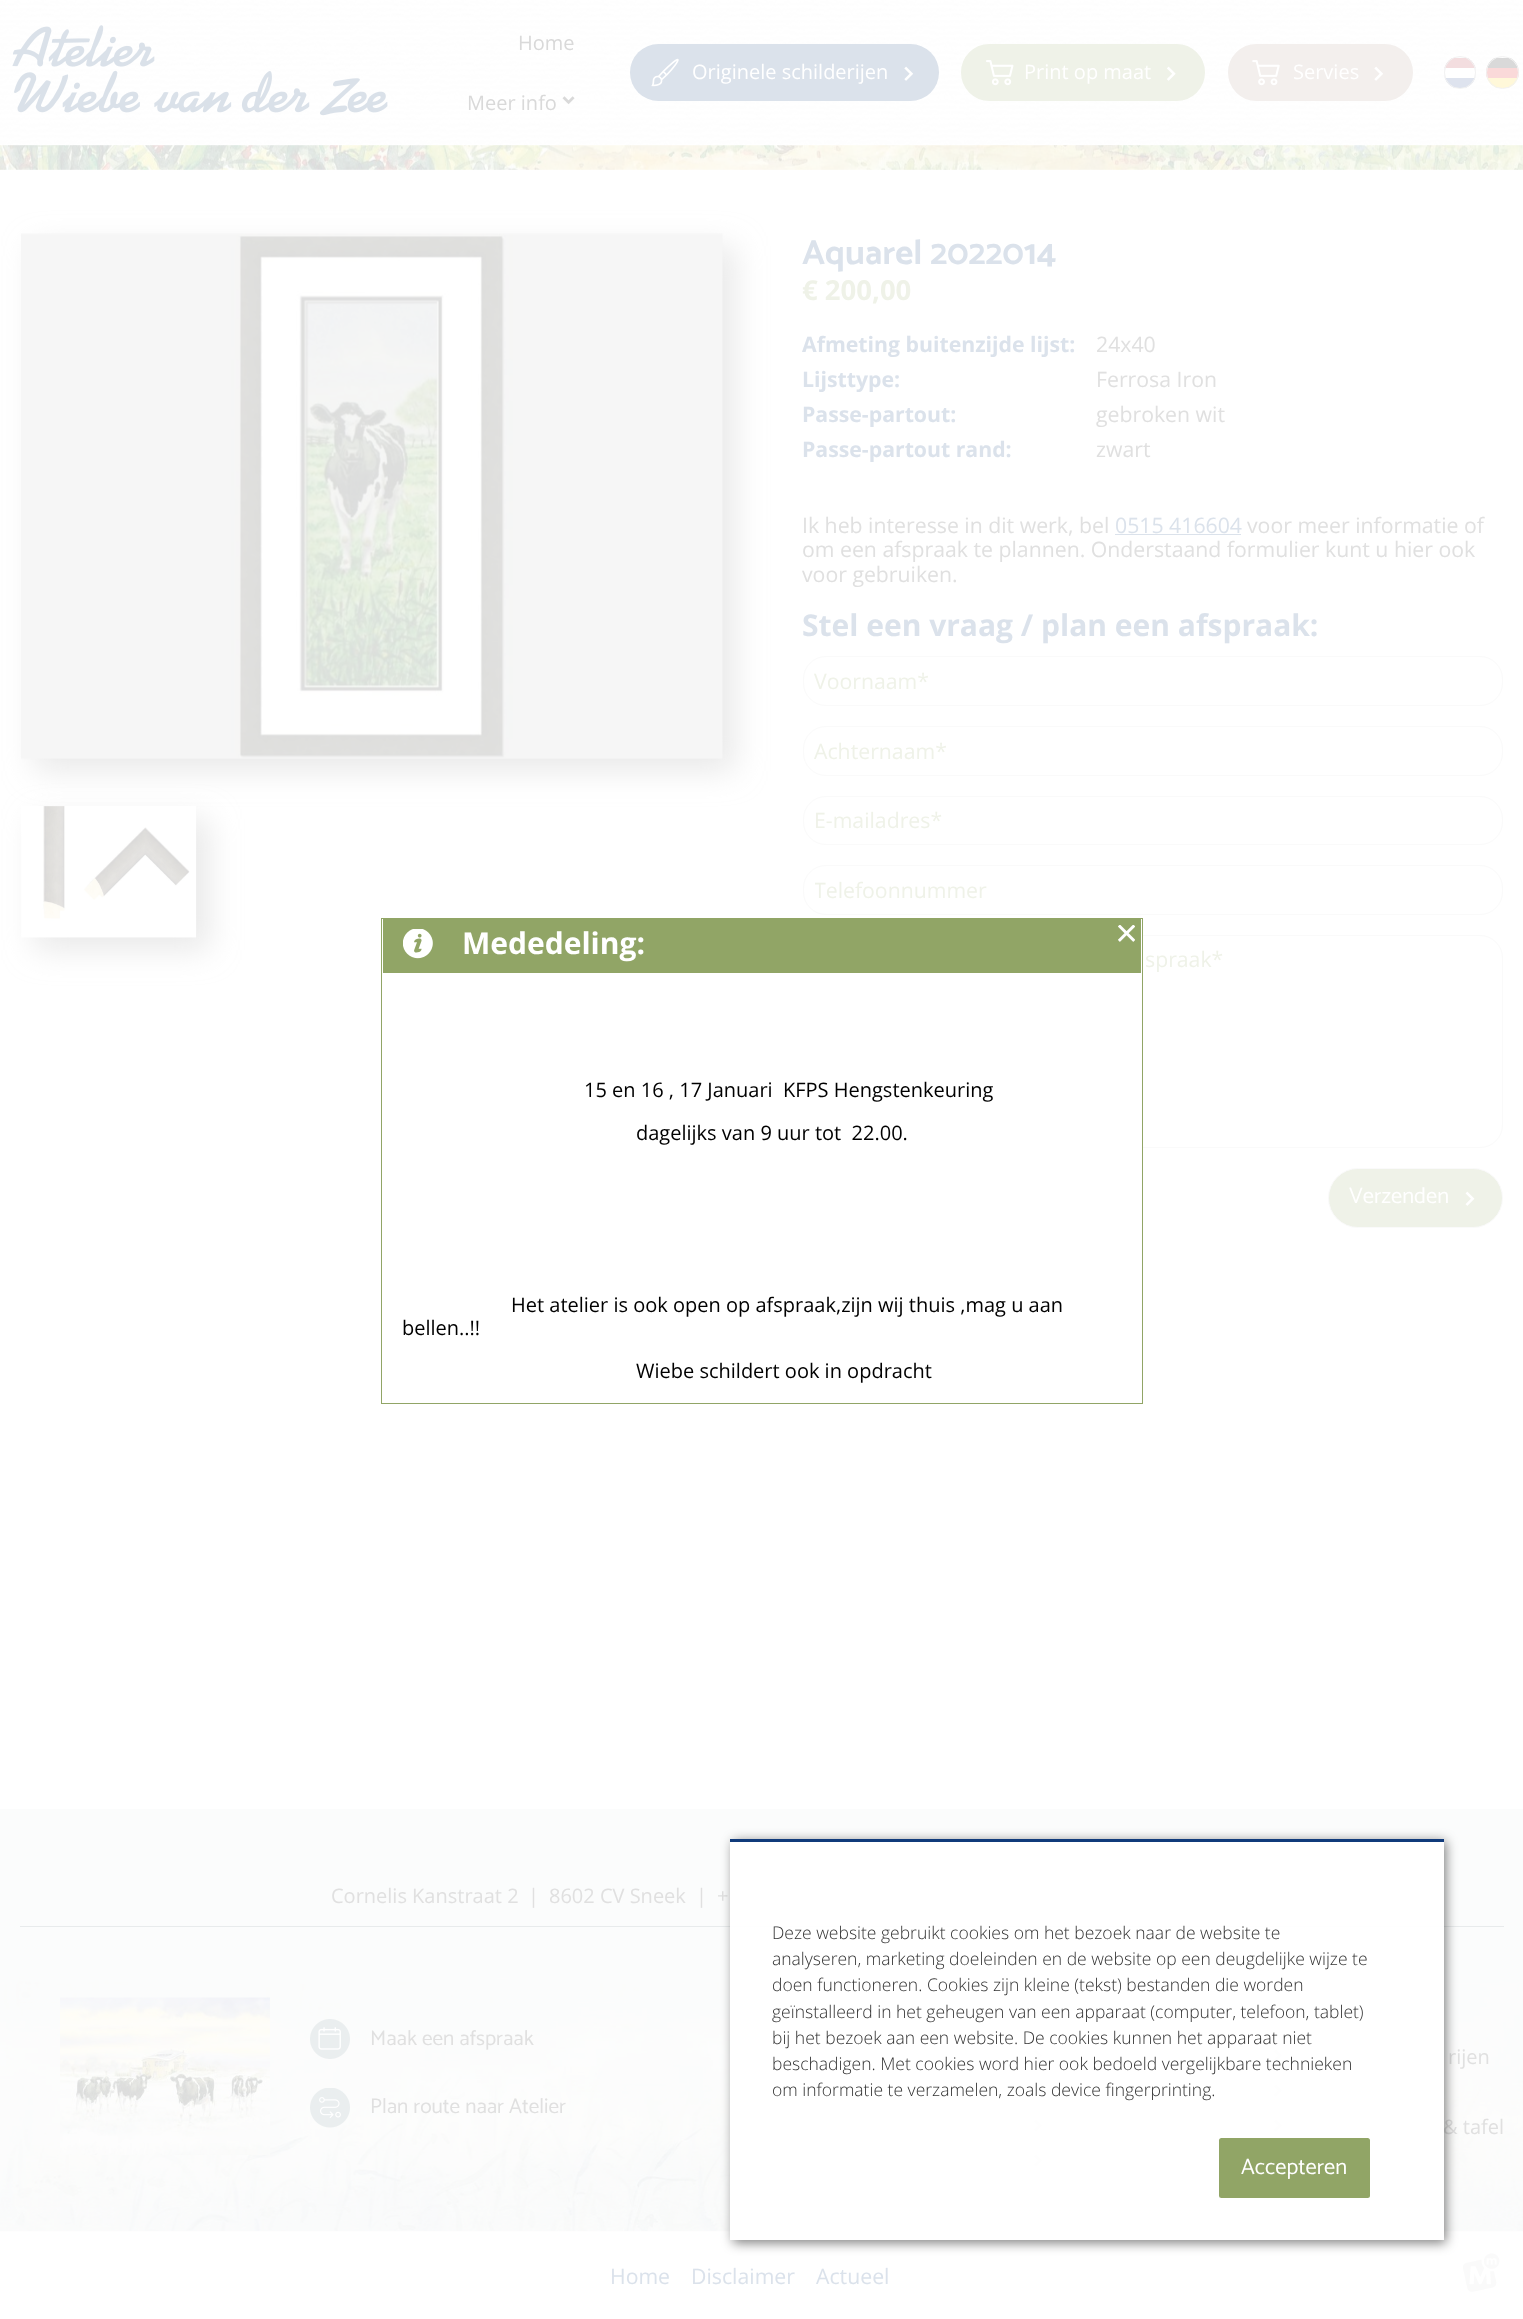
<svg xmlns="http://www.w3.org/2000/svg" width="1523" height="2319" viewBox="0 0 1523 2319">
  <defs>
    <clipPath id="clip1"><rect x="1444" y="56" width="32" height="33" rx="16"/></clipPath>
    <clipPath id="clip2"><rect x="1486" y="56" width="33" height="33" rx="16.5"/></clipPath>
    <filter id="blur1" x="-50%" y="-200%" width="200%" height="500%"><feGaussianBlur stdDeviation="15.5"/></filter>
    <clipPath id="clip3"><rect x="815" y="875" width="675" height="29"/></clipPath>
    <clipPath id="clip4"><path d="M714 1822H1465V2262H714ZM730 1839H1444V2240H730Z" clip-rule="evenodd"/></clipPath>
    <filter id="blur2" x="-50%" y="-200%" width="200%" height="500%"><feGaussianBlur stdDeviation="6"/></filter>
  </defs>
  <rect width="100%" height="100%" fill="#ffffff"/>
  <image x="0" y="0" width="1523" height="145" href="img1.png"/>
  <image x="12" y="25" width="376" height="91" href="img2.png"/>
  <text x="518" y="50" font-family="Open Sans" font-size="20" fill="#d9d9d9">Home</text>
  <text x="467" y="110" font-family="Open Sans" font-size="20" fill="#d9d9d9">Meer info</text>
  <image x="562" y="96" width="13" height="9" href="img3.png"/>
  <rect x="630" y="44" width="309" height="57" rx="28.5" fill="#dbe2eb"/>
  <image x="651" y="58" width="28" height="29" href="img4.png"/>
  <text x="692" y="79" font-family="Open Sans" font-size="20" fill="#ffffff">Originele schilderijen</text>
  <image x="904" y="66" width="10" height="15" href="img5.png"/>
  <rect x="963" y="46" width="240" height="53" rx="26.5" fill="#eff2e8" stroke="#eff2e8" stroke-width="4"/>
  <image x="986" y="60" width="28" height="26" href="img6.png"/>
  <text x="1024" y="79" font-family="Open Sans" font-size="20" fill="#ffffff">Print op maat</text>
  <image x="1166" y="66" width="10" height="15" href="img7.png"/>
  <rect x="1230" y="46" width="181" height="53" rx="26.5" fill="#f3efed" stroke="#f3efed" stroke-width="4"/>
  <image x="1252" y="60" width="28" height="26" href="img8.png"/>
  <text x="1293" y="79" font-family="Open Sans" font-size="20" fill="#ffffff">Servies</text>
  <image x="1374" y="66" width="10" height="15" href="img9.png"/>
  <g clip-path="url(#clip1)">
    <rect x="1444" y="58" width="32" height="30" fill="#dee3ee"/>
    <rect x="1444" y="58" width="32" height="20" fill="#ffffff"/>
    <rect x="1444" y="58" width="32" height="10" fill="#f3dddf"/>
  </g>
  <rect x="1444.5" y="56.5" width="31" height="32" rx="15.5" fill="none" stroke="#f2f2f2"/>
  <g clip-path="url(#clip2)">
    <rect x="1487" y="78" width="31" height="10" fill="#fff8d9"/>
    <rect x="1486" y="58" width="33" height="10" fill="#d9d9d9"/>
    <rect x="1486" y="68" width="33" height="10" fill="#fad9d9"/>
  </g>
  <circle cx="1502.5" cy="72.5" r="16" fill="none" stroke="#f2f2f2"/>
  <image x="0" y="145" width="1523" height="25" href="img10.png"/>
  <rect x="803.5" y="935.5" width="699" height="212" rx="22.5" fill="none" stroke="#fafafa"/>
  <rect x="803" y="935" width="339" height="213" fill="#ffffff"/>
  <rect x="381.5" y="918.5" width="761" height="485" fill="none" stroke="#91a566"/>
  <rect x="383" y="919" width="758" height="54" fill="#91a566"/>
  <image x="403" y="929" width="30" height="30" href="img11.png"/>
  <text x="462" y="954" font-family="Open Sans" font-size="30" font-weight="bold" fill="#ffffff">Mededeling:</text>
  <image x="1118" y="925" width="17" height="17" href="img12.png"/>
  <text x="584" y="1097" font-family="Open Sans" font-size="20" fill="#000000" xml:space="preserve">15 en 16 , 17 Januari  KFPS Hengstenkeuring</text>
  <text x="636" y="1140" font-family="Open Sans" font-size="20" fill="#000000" xml:space="preserve">dagelijks van 9 uur tot  22.00.</text>
  <text x="511" y="1312" font-family="Open Sans" font-size="20" fill="#000000">Het atelier is ook open op afspraak,zijn wij thuis ,mag u aan</text>
  <text x="402" y="1335" font-family="Open Sans" font-size="20" fill="#000000">bellen..!!</text>
  <text x="636" y="1378" font-family="Open Sans" font-size="20" fill="#000000">Wiebe schildert ook in opdracht</text>
  <rect x="34" y="246" width="701" height="525" fill="#dedede" fill-opacity="0.66" filter="url(#blur1)"/>
  <image x="21" y="233" width="702" height="527" href="img13.png"/>
  <rect x="34" y="819" width="175" height="131" fill="#dedede" fill-opacity="0.66" filter="url(#blur1)"/>
  <image x="21" y="806" width="176" height="132" href="img14.png"/>
  <text x="802" y="264" font-family="Catamaran" font-size="35" font-weight="bold" fill="#dbe2eb">Aquarel 2022014</text>
  <text x="802" y="300" font-family="Open Sans" font-size="27.5" font-weight="bold" fill="#eff2e8">€ 200,00</text>
  <text x="802" y="352" font-family="Open Sans" font-size="21.25" font-weight="bold" fill="#dbe2eb">Afmeting buitenzijde lijst:</text>
  <text x="1096" y="352" font-family="Open Sans" font-size="21.25" fill="#e0e0e0">24x40</text>
  <text x="802" y="387" font-family="Open Sans" font-size="21.25" font-weight="bold" fill="#dbe2eb">Lijsttype:</text>
  <text x="1096" y="387" font-family="Open Sans" font-size="21.25" fill="#e0e0e0">Ferrosa Iron</text>
  <text x="802" y="422" font-family="Open Sans" font-size="21.25" font-weight="bold" fill="#dbe2eb">Passe-partout:</text>
  <text x="1096" y="422" font-family="Open Sans" font-size="21.25" fill="#e0e0e0">gebroken wit</text>
  <text x="802" y="457" font-family="Open Sans" font-size="21.25" font-weight="bold" fill="#dbe2eb">Passe-partout rand:</text>
  <text x="1096" y="457" font-family="Open Sans" font-size="21.25" fill="#e0e0e0">zwart</text>
  <text x="802" y="533" font-family="Open Sans" font-size="21.25" fill="#e0e0e0">Ik heb interesse in dit werk, bel</text>
  <text x="1115" y="533" font-family="Open Sans" font-size="21.25" fill="#dbe2eb">0515 416604</text>
  <rect x="1115" y="534" width="126" height="1" fill="#dbe2eb"/>
  <text x="1247" y="533" font-family="Open Sans" font-size="21.25" fill="#e0e0e0">voor meer informatie of</text>
  <text x="802" y="557" font-family="Open Sans" font-size="21.25" fill="#e0e0e0">om een afspraak te plannen. Onderstaand formulier kunt u hier ook</text>
  <text x="802" y="582" font-family="Open Sans" font-size="21.25" fill="#e0e0e0">voor gebruiken.</text>
  <text x="802" y="636" font-family="Open Sans" font-size="30" font-weight="bold" fill="#dbe2eb">Stel een vraag / plan een afspraak:</text>
  <rect x="803.5" y="656.5" width="699" height="49" rx="22.5" fill="none" stroke="#fafafa"/>
  <text x="814" y="689" font-family="Open Sans" font-size="21.25" fill="#eff2e8">Voornaam*</text>
  <rect x="803.5" y="726.5" width="699" height="49" rx="22.5" fill="none" stroke="#fafafa"/>
  <text x="814" y="759" font-family="Open Sans" font-size="21.25" fill="#eff2e8">Achternaam*</text>
  <rect x="803.5" y="796.5" width="699" height="48" rx="22.5" fill="none" stroke="#fafafa"/>
  <text x="814" y="828" font-family="Open Sans" font-size="21.25" fill="#eff2e8">E-mailadres*</text>
  <rect x="803.5" y="865.5" width="699" height="49" rx="22.5" fill="none" stroke="#fafafa"/>
  <g clip-path="url(#clip3)">
    <text x="814" y="898" font-family="Open Sans" font-size="21.25" fill="#eff2e8">Telefoonnummer</text>
  </g>
  <text x="1145" y="967" font-family="Open Sans" font-size="21.25" fill="#eff2e8">spraak*</text>
  <rect x="1328.5" y="1168.5" width="174" height="59" rx="29.5" fill="#eff2e8" stroke="#fafafa"/>
  <text x="1349" y="1203" font-family="Catamaran" font-size="22.5" fill="#ffffff">Verzenden</text>
  <image x="1465" y="1191" width="10" height="15" href="img15.png"/>
  <image x="0" y="1809" width="1523" height="423" href="img16.png"/>
  <rect x="20" y="1926" width="1484" height="1" fill="#e8ebec"/>
  <text x="331" y="1903" font-family="Open Sans" font-size="20" fill="#e0e0e0">Cornelis Kanstraat 2</text>
  <text x="528" y="1903" font-family="Open Sans" font-size="20" fill="#e0e0e0">|</text>
  <text x="549" y="1903" font-family="Open Sans" font-size="20" fill="#e0e0e0">8602 CV Sneek</text>
  <text x="696" y="1903" font-family="Open Sans" font-size="20" fill="#e0e0e0">|</text>
  <text x="717" y="1903" font-family="Open Sans" font-size="20" fill="#e0e0e0">+</text>
  <image x="60" y="1997" width="210" height="158" href="img17.png"/>
  <image x="310" y="2019" width="40" height="40" href="img18.png"/>
  <text x="370" y="2045" font-family="Catamaran" font-size="21.25" fill="#e0e0e0">Maak een afspraak</text>
  <image x="310" y="2088" width="40" height="40" href="img19.png"/>
  <text x="370" y="2113" font-family="Catamaran" font-size="21.25" fill="#e0e0e0">Plan route naar Atelier</text>
  <image x="1034" y="2049" width="8" height="13" href="img20.png"/>
  <image x="1034" y="2084" width="8" height="13" href="img21.png"/>
  <image x="1034" y="2119" width="8" height="13" href="img22.png"/>
  <image x="1034" y="2154" width="8" height="13" href="img23.png"/>
  <image x="1274" y="2049" width="8" height="13" href="img24.png"/>
  <text x="1448" y="2064" font-family="Open Sans" font-size="20" fill="#e0e0e0">rijen</text>
  <image x="1274" y="2084" width="8" height="13" href="img25.png"/>
  <image x="1274" y="2119" width="8" height="13" href="img26.png"/>
  <text x="1443" y="2134" font-family="Open Sans" font-size="20" fill="#e0e0e0">&amp; tafel</text>
  <text x="610" y="2284" font-family="Open Sans" font-size="21.25" fill="#dbe2eb">Home</text>
  <text x="691" y="2284" font-family="Open Sans" font-size="21.25" fill="#dbe2eb">Disclaimer</text>
  <text x="816" y="2284" font-family="Open Sans" font-size="21.25" fill="#dbe2eb">Actueel</text>
  <image x="1463" y="2253" width="37" height="39" href="img27.png"/>
  <g clip-path="url(#clip4)">
    <rect x="733" y="1841" width="713" height="402" fill="#000000" fill-opacity="0.5" filter="url(#blur2)"/>
  </g>
  <rect x="730" y="1842" width="714" height="398" fill="#ffffff" fill-opacity="0.92"/>
  <rect x="730" y="1839" width="714" height="3" fill="#103b7b"/>
  <text x="772" y="1939" font-family="Open Sans" font-size="17.5" font-weight="300" fill="#333333">Deze website gebruikt cookies om het bezoek naar de website te</text>
  <text x="772" y="1965" font-family="Open Sans" font-size="17.5" font-weight="300" fill="#333333">analyseren, marketing doeleinden en de website op een deugdelijke wijze te</text>
  <text x="772" y="1991" font-family="Open Sans" font-size="17.5" font-weight="300" fill="#333333">doen functioneren. Cookies zijn kleine (tekst) bestanden die worden</text>
  <text x="772" y="2018" font-family="Open Sans" font-size="17.5" font-weight="300" fill="#333333">geïnstalleerd in het geheugen van een apparaat (computer, telefoon, tablet)</text>
  <text x="772" y="2044" font-family="Open Sans" font-size="17.5" font-weight="300" fill="#333333">bij het bezoek aan een website. De cookies kunnen het apparaat niet</text>
  <text x="772" y="2070" font-family="Open Sans" font-size="17.5" font-weight="300" fill="#333333">beschadigen. Met cookies word hier ook bedoeld vergelijkbare technieken</text>
  <text x="772" y="2096" font-family="Open Sans" font-size="17.5" font-weight="300" fill="#333333">om informatie te verzamelen, zoals device fingerprinting.</text>
  <rect x="1219" y="2138" width="151" height="60" rx="2.5" fill="#91a566"/>
  <text x="1241" y="2174" font-family="Catamaran" font-size="22.5" fill="#ffffff">Accepteren</text>
</svg>
